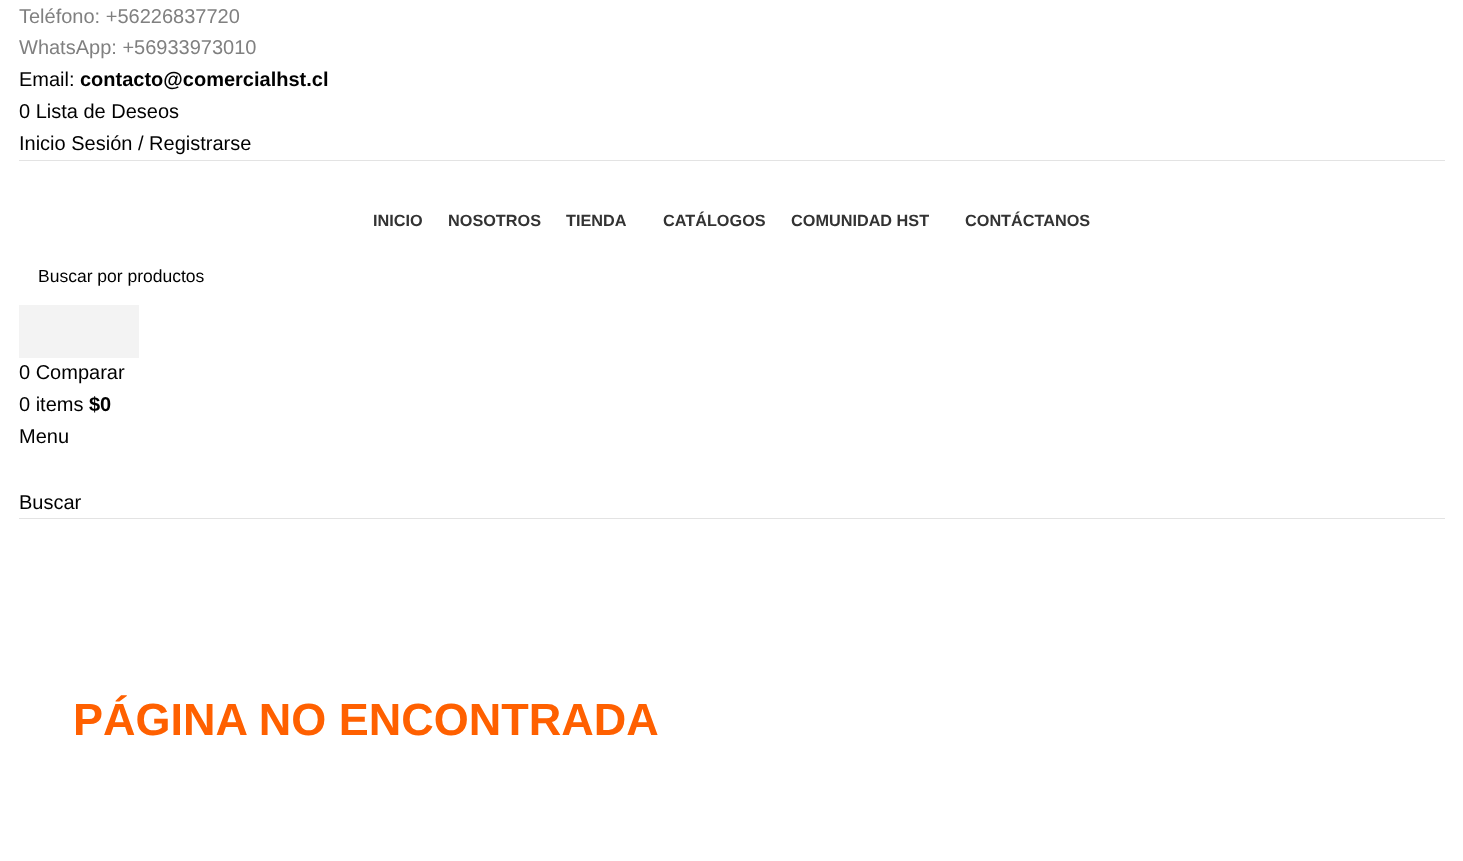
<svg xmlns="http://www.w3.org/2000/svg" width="1463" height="861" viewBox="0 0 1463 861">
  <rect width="100%" height="100%" fill="#ffffff"/>
  <rect x="19" y="160" width="1426" height="1" fill="#e3e3e3"/>
  <text x="19" y="23" font-family="Liberation Sans" font-size="20" fill="#808080">Teléfono: +56226837720</text>
  <text x="19" y="54" font-family="Liberation Sans" font-size="20" fill="#808080">WhatsApp: +56933973010</text>
  <text x="19" y="86" font-family="Liberation Sans" font-size="20" fill="#000000">Email:</text>
  <text x="80" y="86" font-family="Liberation Sans" font-size="20" font-weight="bold" fill="#000000">contacto@comercialhst.cl</text>
  <text x="19" y="118" font-family="Liberation Sans" font-size="20" fill="#000000">0 Lista de Deseos</text>
  <text x="19" y="150" font-family="Liberation Sans" font-size="20" fill="#000000">Inicio Sesión / Registrarse</text>
  <rect x="19" y="518" width="1426" height="1" fill="#e3e3e3"/>
  <text x="373" y="226" font-family="Liberation Sans" font-size="16.25" font-weight="bold" fill="#333333">INICIO</text>
  <text x="448" y="226" font-family="Liberation Sans" font-size="16.25" font-weight="bold" fill="#333333">NOSOTROS</text>
  <text x="566" y="226" font-family="Liberation Sans" font-size="16.25" font-weight="bold" fill="#333333">TIENDA</text>
  <text x="663" y="226" font-family="Liberation Sans" font-size="16.25" font-weight="bold" fill="#333333">CATÁLOGOS</text>
  <text x="791" y="226" font-family="Liberation Sans" font-size="16.25" font-weight="bold" fill="#333333">COMUNIDAD HST</text>
  <text x="965" y="226" font-family="Liberation Sans" font-size="16.25" font-weight="bold" fill="#333333">CONTÁCTANOS</text>
  <text x="38" y="282" font-family="Liberation Sans" font-size="17.5" fill="#000000">Buscar por productos</text>
  <rect x="19" y="305" width="120" height="53" fill="#f3f3f3"/>
  <text x="19" y="379" font-family="Liberation Sans" font-size="20" fill="#000000">0 Comparar</text>
  <text x="19" y="411" font-family="Liberation Sans" font-size="20" fill="#000000">0 items</text>
  <text x="89" y="411" font-family="Liberation Sans" font-size="20" font-weight="bold" fill="#000000">$0</text>
  <text x="19" y="443" font-family="Liberation Sans" font-size="20" fill="#000000">Menu</text>
  <text x="19" y="509" font-family="Liberation Sans" font-size="20" fill="#000000">Buscar</text>
  <text x="73" y="735" font-family="Liberation Sans" font-size="45" font-weight="bold" fill="#ff6000">PÁGINA NO ENCONTRADA</text>
</svg>
